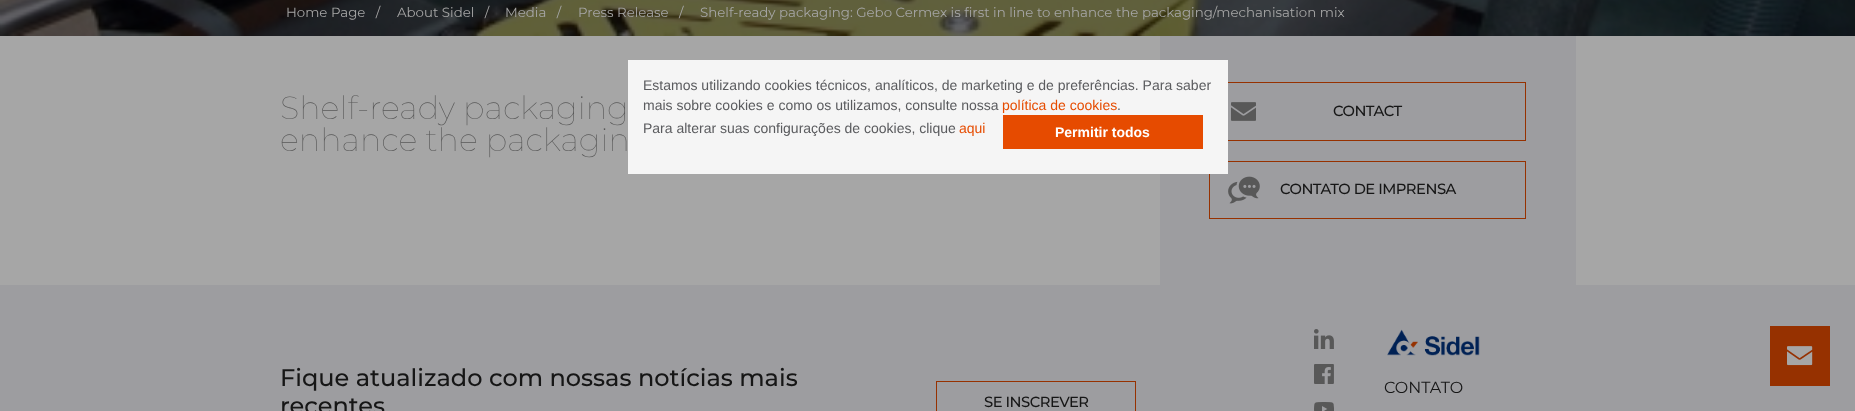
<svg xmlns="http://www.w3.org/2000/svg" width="1855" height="411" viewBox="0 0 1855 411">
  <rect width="100%" height="100%" fill="#a6a6a6"/>
  <image x="0" y="0" width="1855" height="36" href="img1.png"/>
  <text x="286" y="17" font-family="Montserrat" font-size="13.35" fill="#a6a6a6" xml:space="preserve">Home Page   /</text>
  <text x="397" y="17" font-family="Montserrat" font-size="13.35" fill="#a6a6a6" xml:space="preserve">About Sidel   /</text>
  <text x="505" y="17" font-family="Montserrat" font-size="13.35" fill="#a6a6a6" xml:space="preserve">Media   /</text>
  <text x="578" y="17" font-family="Montserrat" font-size="13.35" fill="#a6a6a6" xml:space="preserve">Press Release   /</text>
  <text x="700" y="17" font-family="Montserrat" font-size="13.35" fill="#a6a6a6">Shelf-ready packaging: Gebo Cermex is first in line to enhance the packaging/mechanisation mix</text>
  <rect x="1160" y="36" width="416" height="249" fill="#9d9da0"/>
  <rect x="1209.5" y="82.5" width="316" height="58" fill="none" stroke="#963100"/>
  <rect x="1209.5" y="161.5" width="316" height="57" fill="none" stroke="#963100"/>
  <rect x="628" y="60" width="600" height="114" fill="#f5f5f5"/>
  <text x="643" y="90" font-family="Liberation Sans" font-size="14" fill="#5a5b5e">Estamos utilizando cookies técnicos, analíticos, de marketing e de preferências. Para saber</text>
  <text x="643" y="110" font-family="Liberation Sans" font-size="14" fill="#5a5b5e">mais sobre cookies e como os utilizamos, consulte nossa</text>
  <text x="1002" y="110" font-family="Liberation Sans" font-size="14" fill="#e64c00">política de cookies</text>
  <text x="1117" y="110" font-family="Liberation Sans" font-size="14" fill="#5a5b5e">.</text>
  <text x="643" y="133" font-family="Liberation Sans" font-size="14" fill="#5a5b5e">Para alterar suas configurações de cookies, clique</text>
  <text x="959" y="133" font-family="Liberation Sans" font-size="14" fill="#e64c00">aqui</text>
  <rect x="1003" y="115" width="200" height="34" fill="#e64b00"/>
  <text x="1055" y="137" font-family="Liberation Sans" font-size="14" font-weight="bold" fill="#ffffff">Permitir todos</text>
  <text x="280" y="119" font-family="Montserrat" font-size="32" font-weight="100" fill="#585858">Shelf-ready packaging</text>
  <text x="280" y="151" font-family="Montserrat" font-size="32" font-weight="100" fill="#585858">enhance the packagin</text>
  <image x="1231" y="102" width="25" height="19" href="img2.png"/>
  <text x="1333" y="116" font-family="Montserrat" font-size="14.75" font-weight="500" letter-spacing="-0.5" fill="#161616">CONTACT</text>
  <image x="1228" y="176" width="32" height="28" href="img3.png"/>
  <text x="1280" y="194" font-family="Montserrat" font-size="14.75" font-weight="500" letter-spacing="-0.5" fill="#161616">CONTATO DE IMPRENSA</text>
  <rect x="0" y="285" width="1855" height="126" fill="#9d9da0"/>
  <text x="280" y="386" font-family="Montserrat" font-size="24" font-weight="500" fill="#161616">Fique atualizado com nossas notícias mais</text>
  <text x="280" y="414" font-family="Montserrat" font-size="24" font-weight="500" fill="#161616">recentes</text>
  <rect x="936.5" y="381.5" width="199" height="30" fill="none" stroke="#963100"/>
  <text x="984" y="407" font-family="Montserrat" font-size="14.75" font-weight="500" letter-spacing="-0.5" fill="#161616">SE INSCREVER</text>
  <image x="1314" y="329" width="20" height="20" href="img4.png"/>
  <image x="1314" y="364" width="20" height="20" href="img5.png"/>
  <image x="1314" y="402" width="20" height="9" href="img6.png"/>
  <image x="1387" y="329" width="93" height="27" href="img7.png"/>
  <text x="1384" y="393" font-family="Montserrat" font-size="16" fill="#161616">CONTATO</text>
  <rect x="1770" y="326" width="60" height="60" fill="#963100"/>
  <image x="1787" y="346" width="26" height="20" href="img8.png"/>
</svg>
